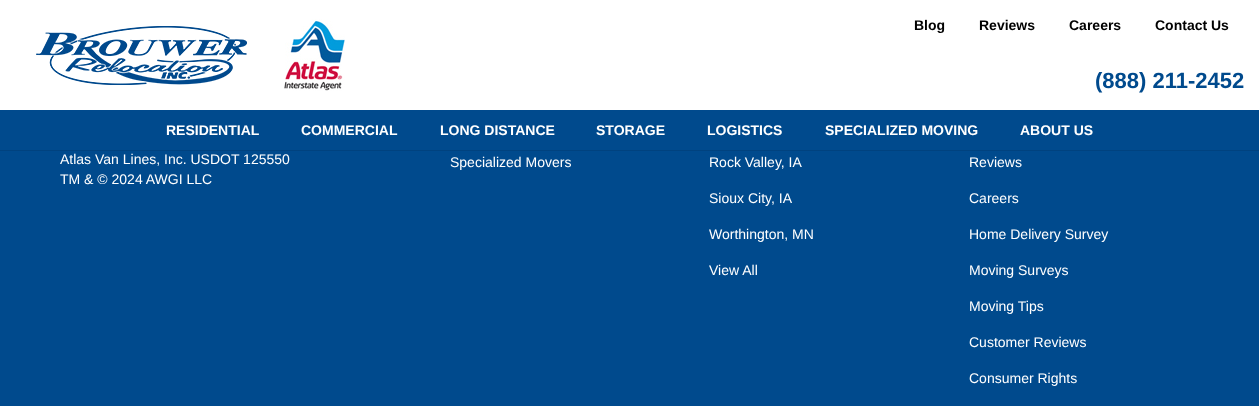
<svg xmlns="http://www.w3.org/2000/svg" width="1259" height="406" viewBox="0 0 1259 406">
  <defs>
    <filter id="blur1" x="-50%" y="-200%" width="200%" height="500%"><feGaussianBlur stdDeviation="0.5"/></filter>
  </defs>
  <rect width="100%" height="100%" fill="#004a8d"/>
  <rect x="0" y="1" width="1259" height="150" fill="#000000" fill-opacity="0.1" filter="url(#blur1)"/>
  <rect x="0" y="0" width="1259" height="110" fill="#ffffff"/>
  <image x="36" y="26" width="211" height="59" href="img1.png"/>
  <image x="284" y="19" width="61" height="72" href="img2.png"/>
  <text x="914" y="30" font-family="Liberation Sans" font-size="14" font-weight="bold" fill="#000000">Blog</text>
  <text x="979" y="30" font-family="Liberation Sans" font-size="14" font-weight="bold" fill="#000000">Reviews</text>
  <text x="1069" y="30" font-family="Liberation Sans" font-size="14" font-weight="bold" fill="#000000">Careers</text>
  <text x="1155" y="30" font-family="Liberation Sans" font-size="14" font-weight="bold" fill="#000000">Contact Us</text>
  <text x="1095" y="88" font-family="Liberation Sans" font-size="22" font-weight="bold" fill="#004a8d">(888) 211-2452</text>
  <rect x="0" y="110" width="1259" height="40" fill="#004a8d"/>
  <text x="166" y="135" font-family="Liberation Sans" font-size="14" font-weight="bold" fill="#ffffff">RESIDENTIAL</text>
  <text x="301" y="135" font-family="Liberation Sans" font-size="14" font-weight="bold" fill="#ffffff">COMMERCIAL</text>
  <text x="440" y="135" font-family="Liberation Sans" font-size="14" font-weight="bold" fill="#ffffff">LONG DISTANCE</text>
  <text x="596" y="135" font-family="Liberation Sans" font-size="14" font-weight="bold" fill="#ffffff">STORAGE</text>
  <text x="707" y="135" font-family="Liberation Sans" font-size="14" font-weight="bold" fill="#ffffff">LOGISTICS</text>
  <text x="825" y="135" font-family="Liberation Sans" font-size="14" font-weight="bold" fill="#ffffff">SPECIALIZED MOVING</text>
  <text x="1020" y="135" font-family="Liberation Sans" font-size="14" font-weight="bold" fill="#ffffff">ABOUT US</text>
  <text x="60" y="164" font-family="Liberation Sans" font-size="14" fill="#ffffff">Atlas Van Lines, Inc. USDOT 125550</text>
  <text x="60" y="184" font-family="Liberation Sans" font-size="14" fill="#ffffff">TM &amp; © 2024 AWGI LLC</text>
  <text x="450" y="167" font-family="Liberation Sans" font-size="14" fill="#ffffff">Specialized Movers</text>
  <text x="709" y="167" font-family="Liberation Sans" font-size="14" fill="#ffffff">Rock Valley, IA</text>
  <text x="709" y="203" font-family="Liberation Sans" font-size="14" fill="#ffffff">Sioux City, IA</text>
  <text x="709" y="239" font-family="Liberation Sans" font-size="14" fill="#ffffff">Worthington, MN</text>
  <text x="709" y="275" font-family="Liberation Sans" font-size="14" fill="#ffffff">View All</text>
  <text x="969" y="167" font-family="Liberation Sans" font-size="14" fill="#ffffff">Reviews</text>
  <text x="969" y="203" font-family="Liberation Sans" font-size="14" fill="#ffffff">Careers</text>
  <text x="969" y="239" font-family="Liberation Sans" font-size="14" fill="#ffffff">Home Delivery Survey</text>
  <text x="969" y="275" font-family="Liberation Sans" font-size="14" fill="#ffffff">Moving Surveys</text>
  <text x="969" y="311" font-family="Liberation Sans" font-size="14" fill="#ffffff">Moving Tips</text>
  <text x="969" y="347" font-family="Liberation Sans" font-size="14" fill="#ffffff">Customer Reviews</text>
  <text x="969" y="383" font-family="Liberation Sans" font-size="14" fill="#ffffff">Consumer Rights</text>
</svg>
